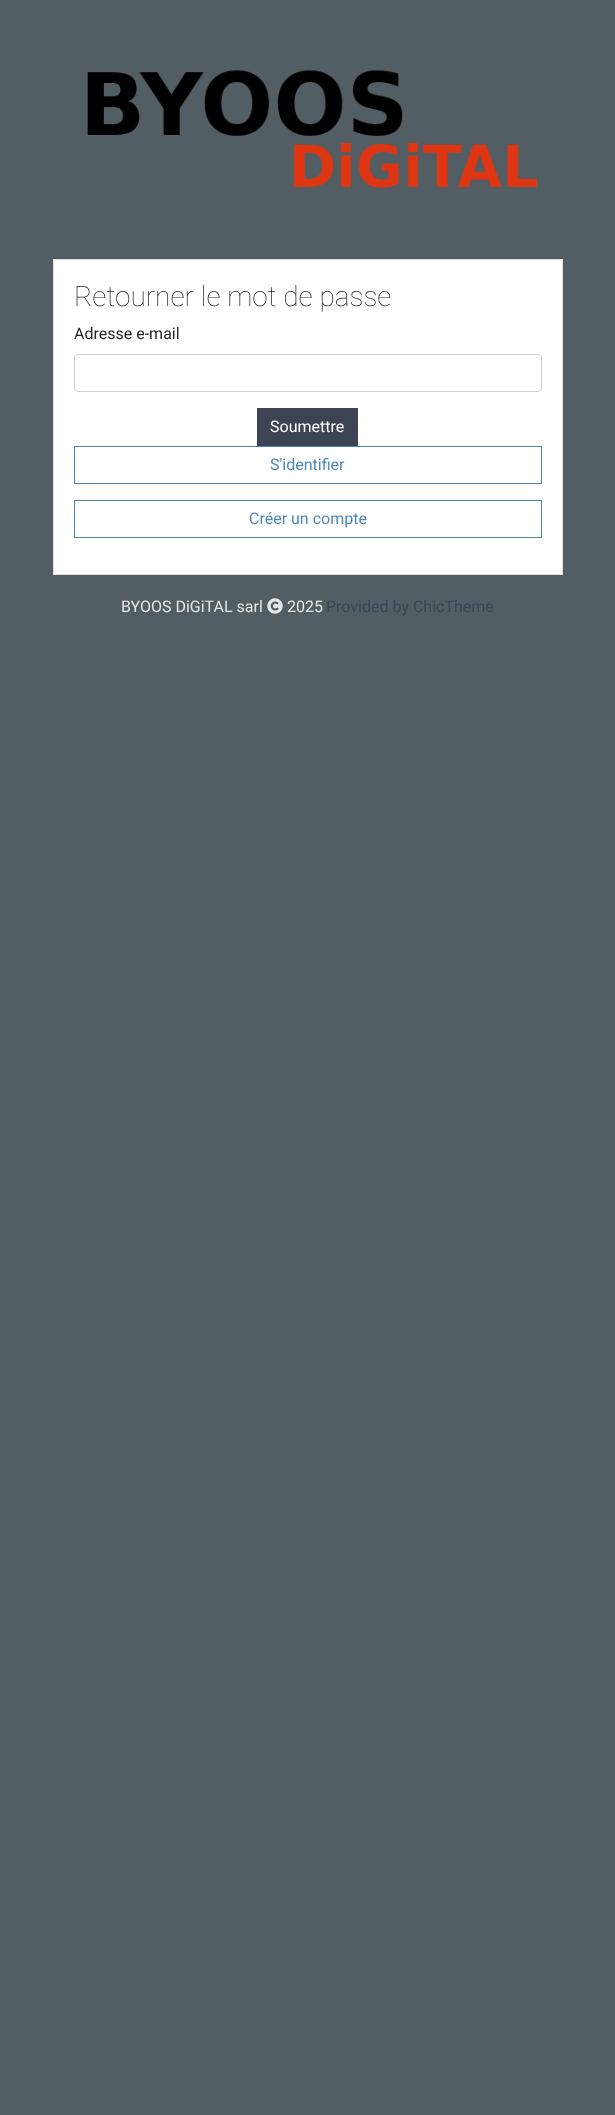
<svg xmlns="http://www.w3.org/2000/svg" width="615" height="2115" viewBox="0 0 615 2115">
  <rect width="100%" height="100%" fill="#525e64"/>
  <image x="87" y="70" width="450" height="118" href="img1.png"/>
  <rect x="53.5" y="259.5" width="509" height="315" fill="#ffffff" stroke="#dfdfdf"/>
  <text x="74" y="306" font-family="Roboto" font-size="28" font-weight="100" fill="#212529">Retourner le mot de passe</text>
  <text x="74" y="339" font-family="Roboto" font-size="16" fill="#212529">Adresse e-mail</text>
  <rect x="74.5" y="354.5" width="467" height="37" rx="3.5" fill="none" stroke="#ced4da"/>
  <rect x="257" y="408" width="101" height="38" fill="#3c4454"/>
  <text x="270" y="432" font-family="Roboto" font-size="16" fill="#ffffff">Soumettre</text>
  <rect x="74.5" y="446.5" width="467" height="37" fill="none" stroke="#4c87b9"/>
  <text x="270" y="470" font-family="Roboto" font-size="16" fill="#4c87b9">S'identifier</text>
  <rect x="74.5" y="500.5" width="467" height="37" fill="none" stroke="#4c87b9"/>
  <text x="249" y="524" font-family="Roboto" font-size="16" fill="#4c87b9">Créer un compte</text>
  <text x="121" y="612" font-family="Roboto" font-size="16" fill="#e5e5e5">BYOOS DiGiTAL sarl</text>
  <image x="267" y="598" width="16" height="16" href="img2.png"/>
  <text x="287" y="612" font-family="Roboto" font-size="16" fill="#e5e5e5">2025</text>
  <text x="326" y="612" font-family="Roboto" font-size="16" fill="#3c4454">Provided by ChicTheme</text>
</svg>
